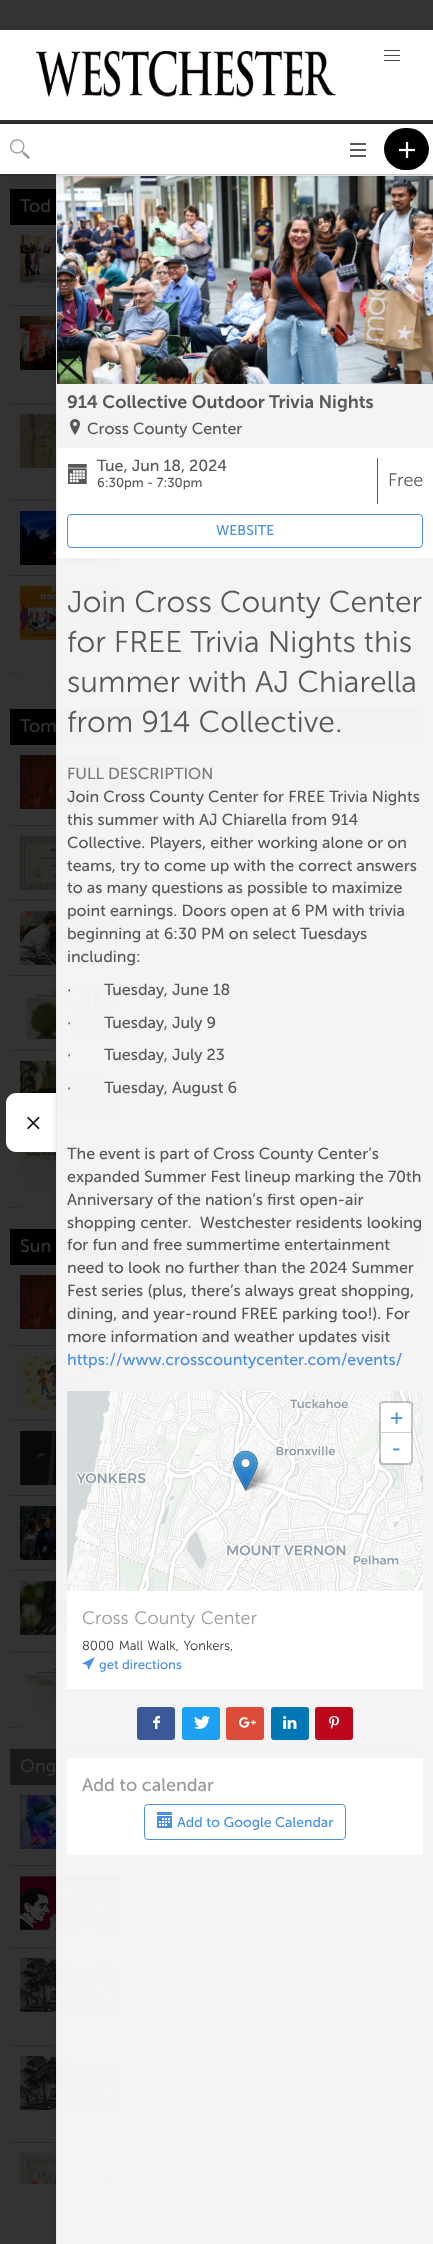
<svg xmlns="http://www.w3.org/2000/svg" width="433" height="2244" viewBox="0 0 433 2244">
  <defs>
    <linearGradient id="g1" gradientUnits="userSpaceOnUse" x1="217" y1="689" x2="217" y2="636"><stop offset="0" stop-color="#333333"/><stop offset="0.8" stop-color="#333333" stop-opacity="0.9"/><stop offset="1" stop-color="#333333" stop-opacity="0"/></linearGradient>
    <linearGradient id="g2" gradientUnits="userSpaceOnUse" x1="217" y1="1209" x2="217" y2="1156"><stop offset="0" stop-color="#333333"/><stop offset="0.8" stop-color="#333333" stop-opacity="0.9"/><stop offset="1" stop-color="#333333" stop-opacity="0"/></linearGradient>
    <linearGradient id="g3" gradientUnits="userSpaceOnUse" x1="217" y1="1729" x2="217" y2="1676"><stop offset="0" stop-color="#333333"/><stop offset="0.8" stop-color="#333333" stop-opacity="0.9"/><stop offset="1" stop-color="#333333" stop-opacity="0"/></linearGradient>
    <clipPath id="clip1"><rect x="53" y="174" width="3" height="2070"/></clipPath>
    <filter id="blur1" x="-50%" y="-200%" width="200%" height="500%"><feGaussianBlur stdDeviation="2"/></filter>
  </defs>
  <rect width="100%" height="100%" fill="#333333"/>
  <rect x="10" y="403" width="413" height="1" fill="#292929"/>
  <image x="20" y="414" width="100" height="54" href="img7.png"/>
  <rect x="10" y="575" width="413" height="1" fill="#292929"/>
  <image x="20" y="511" width="100" height="54" href="img8.png"/>
  <rect x="10" y="673" width="413" height="1" fill="#292929"/>
  <image x="20" y="586" width="100" height="54" href="img9.png"/>
  <image x="20" y="684" width="100" height="3" href="img10.png"/>
  <rect x="20" y="637" width="393" height="50" fill="url(#g1)"/>
  <rect x="10" y="709" width="413" height="36" fill="#000000"/>
  <rect x="10" y="825" width="413" height="1" fill="#292929"/>
  <image x="20" y="755" width="100" height="54" href="img11.png"/>
  <rect x="10" y="900" width="413" height="1" fill="#292929"/>
  <image x="20" y="836" width="100" height="54" href="img12.png"/>
  <rect x="10" y="975" width="413" height="1" fill="#292929"/>
  <image x="20" y="911" width="100" height="54" href="img13.png"/>
  <rect x="10" y="1050" width="413" height="1" fill="#292929"/>
  <image x="26" y="986" width="90" height="54" href="img14.png"/>
  <image x="20" y="1061" width="100" height="54" href="img15.png"/>
  <rect x="10" y="1207" width="413" height="1" fill="#292929"/>
  <image x="20" y="1136" width="100" height="54" href="img16.png"/>
  <rect x="20" y="1157" width="393" height="51" fill="url(#g2)"/>
  <rect x="10" y="1229" width="413" height="36" fill="#000000"/>
  <rect x="10" y="1345" width="413" height="1" fill="#292929"/>
  <image x="20" y="1275" width="100" height="54" href="img11.png"/>
  <rect x="10" y="1420" width="57" height="1" fill="#292929"/>
  <image x="20" y="1356" width="100" height="54" href="img17.png"/>
  <rect x="10" y="1495" width="57" height="1" fill="#292929"/>
  <image x="20" y="1431" width="47" height="54" href="img18.png"/>
  <rect x="10" y="1570" width="57" height="1" fill="#292929"/>
  <image x="20" y="1506" width="47" height="54" href="img19.png"/>
  <rect x="10" y="1652" width="57" height="1" fill="#292929"/>
  <image x="20" y="1581" width="47" height="54" href="img20.png"/>
  <rect x="10" y="1727" width="413" height="1" fill="#292929"/>
  <image x="26" y="1663" width="90" height="54" href="img14.png"/>
  <rect x="20" y="1677" width="393" height="51" fill="url(#g3)"/>
  <rect x="10" y="1749" width="413" height="36" fill="#191919"/>
  <rect x="10" y="1865" width="413" height="1" fill="#292929"/>
  <image x="20" y="1795" width="47" height="54" href="img21.png"/>
  <rect x="10" y="1947" width="413" height="1" fill="#292929"/>
  <image x="20" y="1876" width="100" height="54" href="img22.png"/>
  <rect x="10" y="2045" width="413" height="1" fill="#292929"/>
  <image x="20" y="1958" width="100" height="54" href="img23.png"/>
  <rect x="10" y="2142" width="413" height="1" fill="#292929"/>
  <image x="20" y="2056" width="100" height="54" href="img24.png"/>
  <image x="20" y="2153" width="100" height="31" href="img25.png"/>
  <rect x="10" y="189" width="46" height="36" fill="#000000"/>
  <rect x="10" y="305" width="46" height="1" fill="#292929"/>
  <image x="20" y="235" width="36" height="54" href="img5.png"/>
  <image x="20" y="316" width="36" height="54" href="img6.png"/>
  <rect x="10" y="500" width="46" height="1" fill="#292929"/>
  <rect x="57" y="1125" width="366" height="1" fill="#292929"/>
  <path d="M16 1093H56V1152H16C10.5 1152 6 1147.5 6 1142V1103C6 1097.5 10.5 1093 16 1093Z" fill="#ffffff"/>
  <g clip-path="url(#clip1)">
    <rect x="54" y="139" width="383" height="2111" fill="#000000" fill-opacity="0.06" filter="url(#blur1)"/>
  </g>
  <rect x="56" y="174" width="1" height="2070" fill="#e8e9ea"/>
  <rect x="57" y="174" width="376" height="2" fill="#ffffff"/>
  <image x="57" y="176" width="376" height="208" href="img27.png"/>
  <rect x="0" y="124" width="433" height="50" fill="#000000" fill-opacity="0.5" filter="url(#blur1)"/>
  <rect x="0" y="30" width="433" height="90" fill="#ffffff"/>
  <image x="36" y="51" width="300" height="46" href="img1.png"/>
  <rect x="384" y="50" width="16" height="1" fill="#4a4a4a"/>
  <rect x="384" y="55" width="16" height="1" fill="#4a4a4a"/>
  <rect x="384" y="60" width="16" height="1" fill="#4a4a4a"/>
  <rect x="0" y="124" width="433" height="50" fill="#ffffff"/>
  <image x="10" y="139" width="20" height="20" href="img2.png"/>
  <image x="350" y="143" width="16" height="14" href="img3.png"/>
  <rect x="384" y="128" width="45" height="42" rx="21" fill="#000000"/>
  <image x="399" y="142" width="16" height="16" href="img4.png"/>
  <text x="20" y="212" font-family="Museo Sans" font-size="18" fill="#333333">Tod</text>
  <text x="20" y="732" font-family="Museo Sans" font-size="18" fill="#333333">Tom</text>
  <text x="20" y="1252" font-family="Museo Sans" font-size="18" fill="#333333">Sun</text>
  <text x="20" y="1772" font-family="Museo Sans" font-size="18" fill="#333333">Ong</text>
  <image x="27" y="1116" width="13" height="14" href="img26.png"/>
  <rect x="57" y="384" width="376" height="1860" fill="#ffffff" fill-opacity="0.95"/>
  <text x="67" y="408" font-family="Museo Sans" font-size="18" font-weight="600" fill="#575858">914 Collective Outdoor Trivia Nights</text>
  <image x="70" y="419" width="10" height="16" href="img28.png"/>
  <text x="87" y="434" font-family="Museo Sans" font-size="16" fill="#575858">Cross County Center</text>
  <rect x="57" y="448" width="376" height="110" fill="#ffffff"/>
  <image x="68" y="464" width="19" height="20" href="img29.png"/>
  <text x="97" y="471" font-family="Museo Sans" font-size="16" fill="#575858">Tue, Jun 18, 2024</text>
  <text x="97" y="487" font-family="Museo Sans" font-size="13" fill="#575858">6:30pm - 7:30pm</text>
  <rect x="377" y="458" width="1" height="46" fill="#575858"/>
  <text x="388" y="486" font-family="Museo Sans" font-size="18" font-weight="300" fill="#575858">Free</text>
  <rect x="67.5" y="514.5" width="355" height="33" rx="3.5" fill="none" stroke="#4a90e2"/>
  <text x="216" y="535" font-family="Museo Sans" font-size="14" fill="#4a90e2">WEBSITE</text>
  <text x="67" y="612" font-family="Museo Sans" font-size="30" font-weight="300" fill="#575858">Join Cross County Center</text>
  <text x="67" y="652" font-family="Museo Sans" font-size="30" font-weight="300" fill="#575858">for FREE Trivia Nights this</text>
  <text x="67" y="692" font-family="Museo Sans" font-size="30" font-weight="300" fill="#575858">summer with AJ Chiarella</text>
  <text x="67" y="732" font-family="Museo Sans" font-size="30" font-weight="300" fill="#575858">from 914 Collective.</text>
  <text x="67" y="779" font-family="Museo Sans" font-size="16" fill="#777777">FULL DESCRIPTION</text>
  <text x="67" y="802" font-family="Museo Sans" font-size="16" fill="#575858">Join Cross County Center for FREE Trivia Nights</text>
  <text x="67" y="825" font-family="Museo Sans" font-size="16" fill="#575858">this summer with AJ Chiarella from 914</text>
  <text x="67" y="848" font-family="Museo Sans" font-size="16" fill="#575858">Collective. Players, either working alone or on</text>
  <text x="67" y="871" font-family="Museo Sans" font-size="16" fill="#575858">teams, try to come up with the correct answers</text>
  <text x="67" y="893" font-family="Museo Sans" font-size="16" fill="#575858">to as many questions as possible to maximize</text>
  <text x="67" y="916" font-family="Museo Sans" font-size="16" fill="#575858">point earnings. Doors open at 6 PM with trivia</text>
  <text x="67" y="939" font-family="Museo Sans" font-size="16" fill="#575858">beginning at 6:30 PM on select Tuesdays</text>
  <text x="67" y="962" font-family="Museo Sans" font-size="16" fill="#575858">including:</text>
  <text x="67" y="995" font-family="Museo Sans" font-size="16" fill="#575858" xml:space="preserve">·        Tuesday, June 18</text>
  <text x="67" y="1028" font-family="Museo Sans" font-size="16" fill="#575858" xml:space="preserve">·        Tuesday, July 9</text>
  <text x="67" y="1060" font-family="Museo Sans" font-size="16" fill="#575858" xml:space="preserve">·        Tuesday, July 23</text>
  <text x="67" y="1093" font-family="Museo Sans" font-size="16" fill="#575858" xml:space="preserve">·        Tuesday, August 6</text>
  <text x="67" y="1159" font-family="Museo Sans" font-size="16" fill="#575858">The event is part of Cross County Center’s</text>
  <text x="67" y="1182" font-family="Museo Sans" font-size="16" fill="#575858">expanded Summer Fest lineup marking the 70th</text>
  <text x="67" y="1205" font-family="Museo Sans" font-size="16" fill="#575858">Anniversary of the nation’s first open-air</text>
  <text x="67" y="1228" font-family="Museo Sans" font-size="16" fill="#575858" xml:space="preserve">shopping center.  Westchester residents looking</text>
  <text x="67" y="1250" font-family="Museo Sans" font-size="16" fill="#575858">for fun and free summertime entertainment</text>
  <text x="67" y="1273" font-family="Museo Sans" font-size="16" fill="#575858">need to look no further than the 2024 Summer</text>
  <text x="67" y="1296" font-family="Museo Sans" font-size="16" fill="#575858">Fest series (plus, there’s always great shopping,</text>
  <text x="67" y="1319" font-family="Museo Sans" font-size="16" fill="#575858">dining, and year-round FREE parking too!). For</text>
  <text x="67" y="1342" font-family="Museo Sans" font-size="16" fill="#575858">more information and weather updates visit</text>
  <text x="67" y="1365" font-family="Museo Sans" font-size="16" fill="#4a90e2">https://www.crosscountycenter.com/events/</text>
  <rect x="67" y="1591" width="356" height="98" fill="#ffffff"/>
  <image x="67" y="1391" width="250" height="155" href="img30.png"/>
  <image x="317" y="1391" width="106" height="155" href="img31.png"/>
  <image x="67" y="1546" width="250" height="45" href="img32.png"/>
  <image x="317" y="1546" width="106" height="45" href="img33.png"/>
  <image x="243" y="1463" width="29" height="28" href="img35.png"/>
  <image x="233" y="1450" width="25" height="41" href="img34.png"/>
  <rect x="380" y="1402" width="32" height="62" rx="3" fill="none" stroke="#000000" stroke-opacity="0.2" stroke-width="2"/>
  <path d="M385 1403H407C409 1403 411 1405 411 1407V1433H381V1407C381 1405 383 1403 385 1403Z" fill="#ffffff"/>
  <rect x="381" y="1432" width="30" height="1" fill="#cccccc"/>
  <text x="390" y="1425" font-family="DejaVu Sans Mono" font-size="22" fill="#4a90e2">+</text>
  <path d="M381 1433H411V1459C411 1461 409 1463 407 1463H385C383 1463 381 1461 381 1459Z" fill="#ffffff"/>
  <text x="389" y="1456" font-family="DejaVu Sans Mono" font-size="24" fill="#4a90e2">-</text>
  <text x="82" y="1624" word-spacing="1" font-family="Museo Sans" font-size="18" font-weight="300" fill="#999999">Cross County Center</text>
  <text x="82" y="1650" word-spacing="1" font-family="Museo Sans" font-size="13" font-weight="300" fill="#333333">8000 Mall Walk, Yonkers,</text>
  <path d="M95 1657L88.5 1670L87 1665L82 1663.5Z" fill="#4a90e2"/>
  <text x="99" y="1669" font-family="Museo Sans" font-size="13" fill="#4a90e2">get directions</text>
  <rect x="137" y="1707" width="38" height="33" rx="3" fill="#3b5998"/>
  <image x="153" y="1715" width="7" height="14" href="img36.png"/>
  <rect x="182" y="1707" width="38" height="33" rx="3" fill="#1da1f2"/>
  <image x="194" y="1716" width="16" height="13" href="img37.png"/>
  <rect x="226" y="1707" width="38" height="33" rx="3" fill="#dd4b39"/>
  <image x="239" y="1717" width="17" height="11" href="img38.png"/>
  <rect x="271" y="1707" width="38" height="33" rx="3" fill="#0077b5"/>
  <image x="283" y="1716" width="14" height="13" href="img39.png"/>
  <rect x="315" y="1707" width="38" height="33" rx="3" fill="#bd081c"/>
  <image x="329" y="1715" width="11" height="14" href="img40.png"/>
  <rect x="67" y="1758" width="356" height="97" fill="#ffffff"/>
  <text x="82" y="1791" font-family="Museo Sans" font-size="18" fill="#999999">Add to calendar</text>
  <rect x="144.5" y="1804.5" width="201" height="35" rx="3.5" fill="none" stroke="#4a90e2"/>
  <image x="157" y="1812" width="15" height="16" href="img41.png"/>
  <text x="177" y="1827" font-family="Museo Sans" font-size="14" fill="#4a90e2">Add to Google Calendar</text>
</svg>
